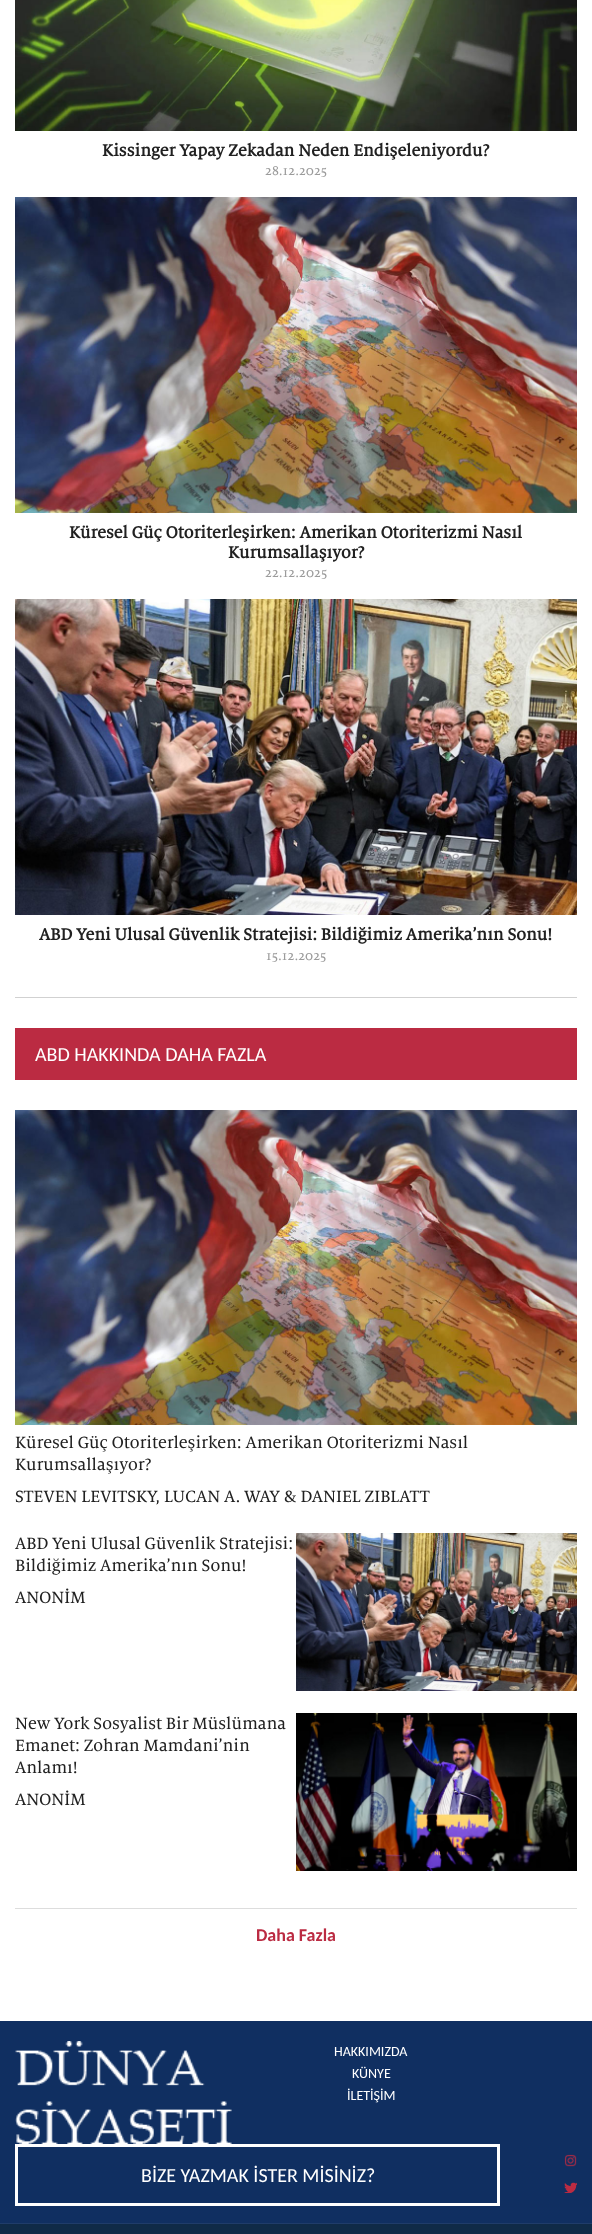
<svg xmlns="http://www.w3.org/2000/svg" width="592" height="2234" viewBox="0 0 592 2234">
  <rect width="100%" height="100%" fill="#ffffff"/>
  <image x="15" y="0" width="562" height="131" href="img1.png"/>
  <text x="102" y="156" font-family="'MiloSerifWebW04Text'" font-size="18" font-weight="bold" fill="#212121">Kissinger Yapay Zekadan Neden Endişeleniyordu?</text>
  <text x="265" y="175" font-family="'MiloSerifWebW04Text'" font-size="14" fill="#9b9b9b">28.12.2025</text>
  <image x="15" y="197" width="562" height="316" href="img2.png"/>
  <text x="69" y="538" font-family="'MiloSerifWebW04Text'" font-size="18" font-weight="bold" fill="#212121">Küresel Güç Otoriterleşirken: Amerikan Otoriterizmi Nasıl</text>
  <text x="228" y="558" font-family="'MiloSerifWebW04Text'" font-size="18" font-weight="bold" fill="#212121">Kurumsallaşıyor?</text>
  <text x="265" y="577" font-family="'MiloSerifWebW04Text'" font-size="14" fill="#9b9b9b">22.12.2025</text>
  <image x="15" y="599" width="562" height="316" href="img3.png"/>
  <text x="39" y="940" font-family="'MiloSerifWebW04Text'" font-size="18" font-weight="bold" fill="#212121">ABD Yeni Ulusal Güvenlik Stratejisi: Bildiğimiz Amerika’nın Sonu!</text>
  <text x="266" y="960" font-family="'MiloSerifWebW04Text'" font-size="14" fill="#9b9b9b">15.12.2025</text>
  <rect x="15" y="997" width="562" height="1" fill="#d1d1d1"/>
  <rect x="15" y="1028" width="562" height="52" fill="#bb2b42"/>
  <text x="35" y="1061" font-family="Carlito" font-size="20" fill="#ffffff">ABD HAKKINDA DAHA FAZLA</text>
  <image x="15" y="1110" width="562" height="315" href="img4.png"/>
  <text x="15" y="1448" font-family="'MiloSerifWebW04Text'" font-size="18" fill="#212121">Küresel Güç Otoriterleşirken: Amerikan Otoriterizmi Nasıl</text>
  <text x="15" y="1470" font-family="'MiloSerifWebW04Text'" font-size="18" fill="#212121">Kurumsallaşıyor?</text>
  <text x="15" y="1502" font-family="'MiloSerifWebW04Text'" font-size="18" fill="#212121">STEVEN LEVITSKY, LUCAN A. WAY &amp; DANIEL ZIBLATT</text>
  <text x="15" y="1549" font-family="'MiloSerifWebW04Text'" font-size="18" fill="#212121">ABD Yeni Ulusal Güvenlik Stratejisi:</text>
  <text x="15" y="1571" font-family="'MiloSerifWebW04Text'" font-size="18" fill="#212121">Bildiğimiz Amerika’nın Sonu!</text>
  <text x="15" y="1603" font-family="'MiloSerifWebW04Text'" font-size="18" fill="#212121">ANONİM</text>
  <image x="296" y="1533" width="281" height="158" href="img5.png"/>
  <text x="15" y="1729" font-family="'MiloSerifWebW04Text'" font-size="18" fill="#212121">New York Sosyalist Bir Müslümana</text>
  <text x="15" y="1751" font-family="'MiloSerifWebW04Text'" font-size="18" fill="#212121">Emanet: Zohran Mamdani’nin</text>
  <text x="15" y="1773" font-family="'MiloSerifWebW04Text'" font-size="18" fill="#212121">Anlamı!</text>
  <text x="15" y="1805" font-family="'MiloSerifWebW04Text'" font-size="18" fill="#212121">ANONİM</text>
  <image x="296" y="1713" width="281" height="158" href="img6.png"/>
  <rect x="15" y="1908" width="562" height="1" fill="#dddddd"/>
  <text x="256" y="1941" font-family="Carlito" font-size="18" font-weight="bold" fill="#bb2b42">Daha Fazla</text>
  <rect x="0" y="2021" width="592" height="202" fill="#102f61"/>
  <image x="15" y="2041" width="217" height="103" href="img7.png"/>
  <text x="334" y="2056" font-family="Carlito" font-size="14" fill="#ffffff">HAKKIMIZDA</text>
  <text x="352" y="2078" font-family="Carlito" font-size="14" fill="#ffffff">KÜNYE</text>
  <text x="347" y="2100" font-family="Carlito" font-size="14" fill="#ffffff">İLETİŞİM</text>
  <image x="564" y="2154" width="13" height="13" href="img8.png"/>
  <rect x="16.5" y="2145.5" width="482" height="59" fill="none" stroke="#ffffff" stroke-width="3"/>
  <text x="141" y="2182" font-family="Carlito" font-size="20" fill="#ffffff">BİZE YAZMAK İSTER MİSİNİZ?</text>
  <image x="564" y="2182" width="13" height="11" href="img9.png"/>
  <rect x="0" y="2224" width="592" height="10" fill="#0f2a47"/>
  <rect x="0" y="2223" width="592" height="1" fill="#1f3c6a"/>
</svg>
